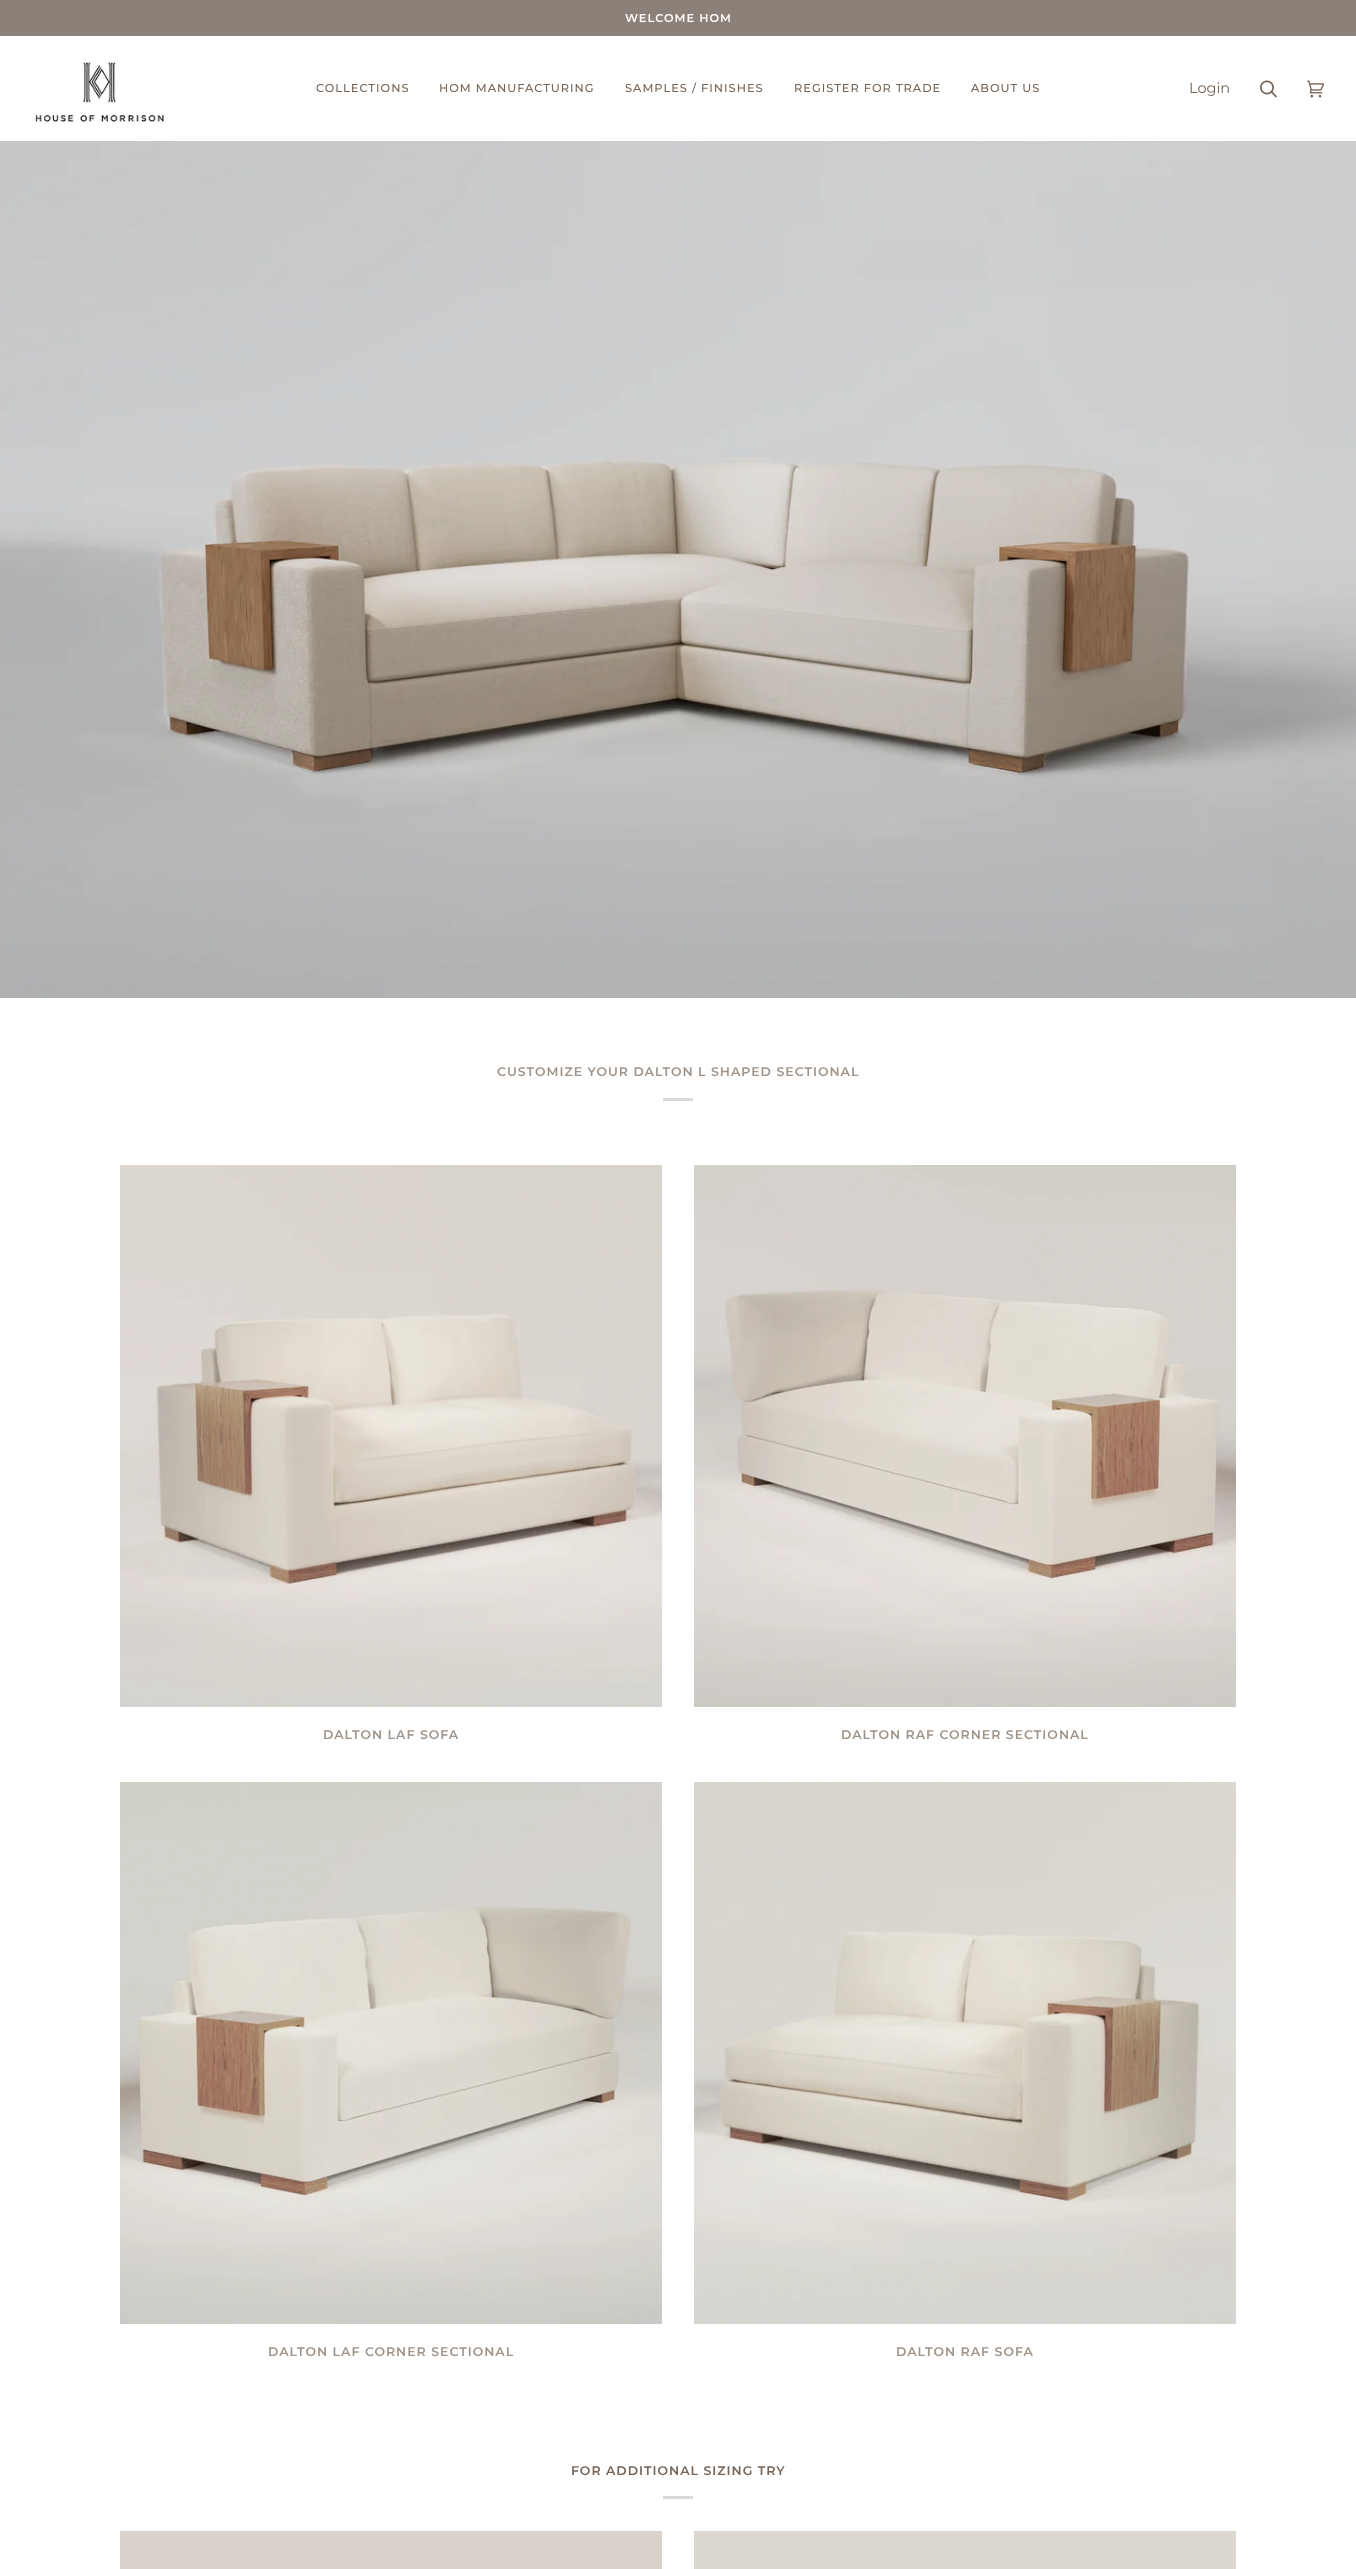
<svg xmlns="http://www.w3.org/2000/svg" width="1356" height="2569" viewBox="0 0 1356 2569">
  <rect width="100%" height="100%" fill="#ffffff"/>
  <rect x="0" y="0" width="1356" height="36" fill="#8b8179"/>
  <text x="625" y="22" font-family="Montserrat" font-size="11.4" font-weight="600" letter-spacing="1" fill="#fffcf9">WELCOME HOM</text>
  <image x="35" y="62" width="129" height="60" href="img1.png"/>
  <text x="316" y="92" font-family="Montserrat" font-size="11.4" font-weight="500" letter-spacing="1" fill="#766456">COLLECTIONS</text>
  <text x="439" y="92" font-family="Montserrat" font-size="11.4" font-weight="500" letter-spacing="1" fill="#766456">HOM MANUFACTURING</text>
  <text x="625" y="92" font-family="Montserrat" font-size="11.4" font-weight="500" letter-spacing="1" fill="#766456">SAMPLES / FINISHES</text>
  <text x="794" y="92" font-family="Montserrat" font-size="11.4" font-weight="500" letter-spacing="1" fill="#766456">REGISTER FOR TRADE</text>
  <text x="971" y="92" font-family="Montserrat" font-size="11.4" font-weight="500" letter-spacing="1" fill="#766456">ABOUT US</text>
  <text x="1189" y="93" font-family="Montserrat" font-size="14.5" fill="#766456">Login</text>
  <image x="1260" y="80" width="17" height="18" href="img2.png"/>
  <image x="1307" y="80" width="17" height="18" href="img3.png"/>
  <image x="0" y="141" width="1356" height="857" href="img4.png"/>
  <text x="497" y="1076" font-family="Montserrat" font-size="12.5" font-weight="600" letter-spacing="1" fill="#9f9389">CUSTOMIZE YOUR DALTON L SHAPED SECTIONAL</text>
  <rect x="663" y="1098" width="30" height="3" fill="#dcd8d6"/>
  <image x="120" y="1165" width="542" height="542" href="img5.png"/>
  <text x="323" y="1739" font-family="Montserrat" font-size="12.5" font-weight="600" letter-spacing="1" fill="#9f9389">DALTON LAF SOFA</text>
  <image x="694" y="1165" width="542" height="542" href="img6.png"/>
  <text x="841" y="1739" font-family="Montserrat" font-size="12.5" font-weight="600" letter-spacing="1" fill="#9f9389">DALTON RAF CORNER SECTIONAL</text>
  <image x="120" y="1782" width="542" height="542" href="img7.png"/>
  <text x="268" y="2356" font-family="Montserrat" font-size="12.5" font-weight="600" letter-spacing="1" fill="#9f9389">DALTON LAF CORNER SECTIONAL</text>
  <image x="694" y="1782" width="542" height="542" href="img8.png"/>
  <text x="896" y="2356" font-family="Montserrat" font-size="12.5" font-weight="600" letter-spacing="1" fill="#9f9389">DALTON RAF SOFA</text>
  <text x="571" y="2475" font-family="Montserrat" font-size="12.5" font-weight="600" letter-spacing="1" fill="#766456">FOR ADDITIONAL SIZING TRY</text>
  <rect x="663" y="2496" width="30" height="3" fill="#dcd8d6"/>
  <rect x="120" y="2531" width="542" height="38" fill="#d8d2cb"/>
  <rect x="694" y="2531" width="542" height="38" fill="#dcd7cf"/>
</svg>
